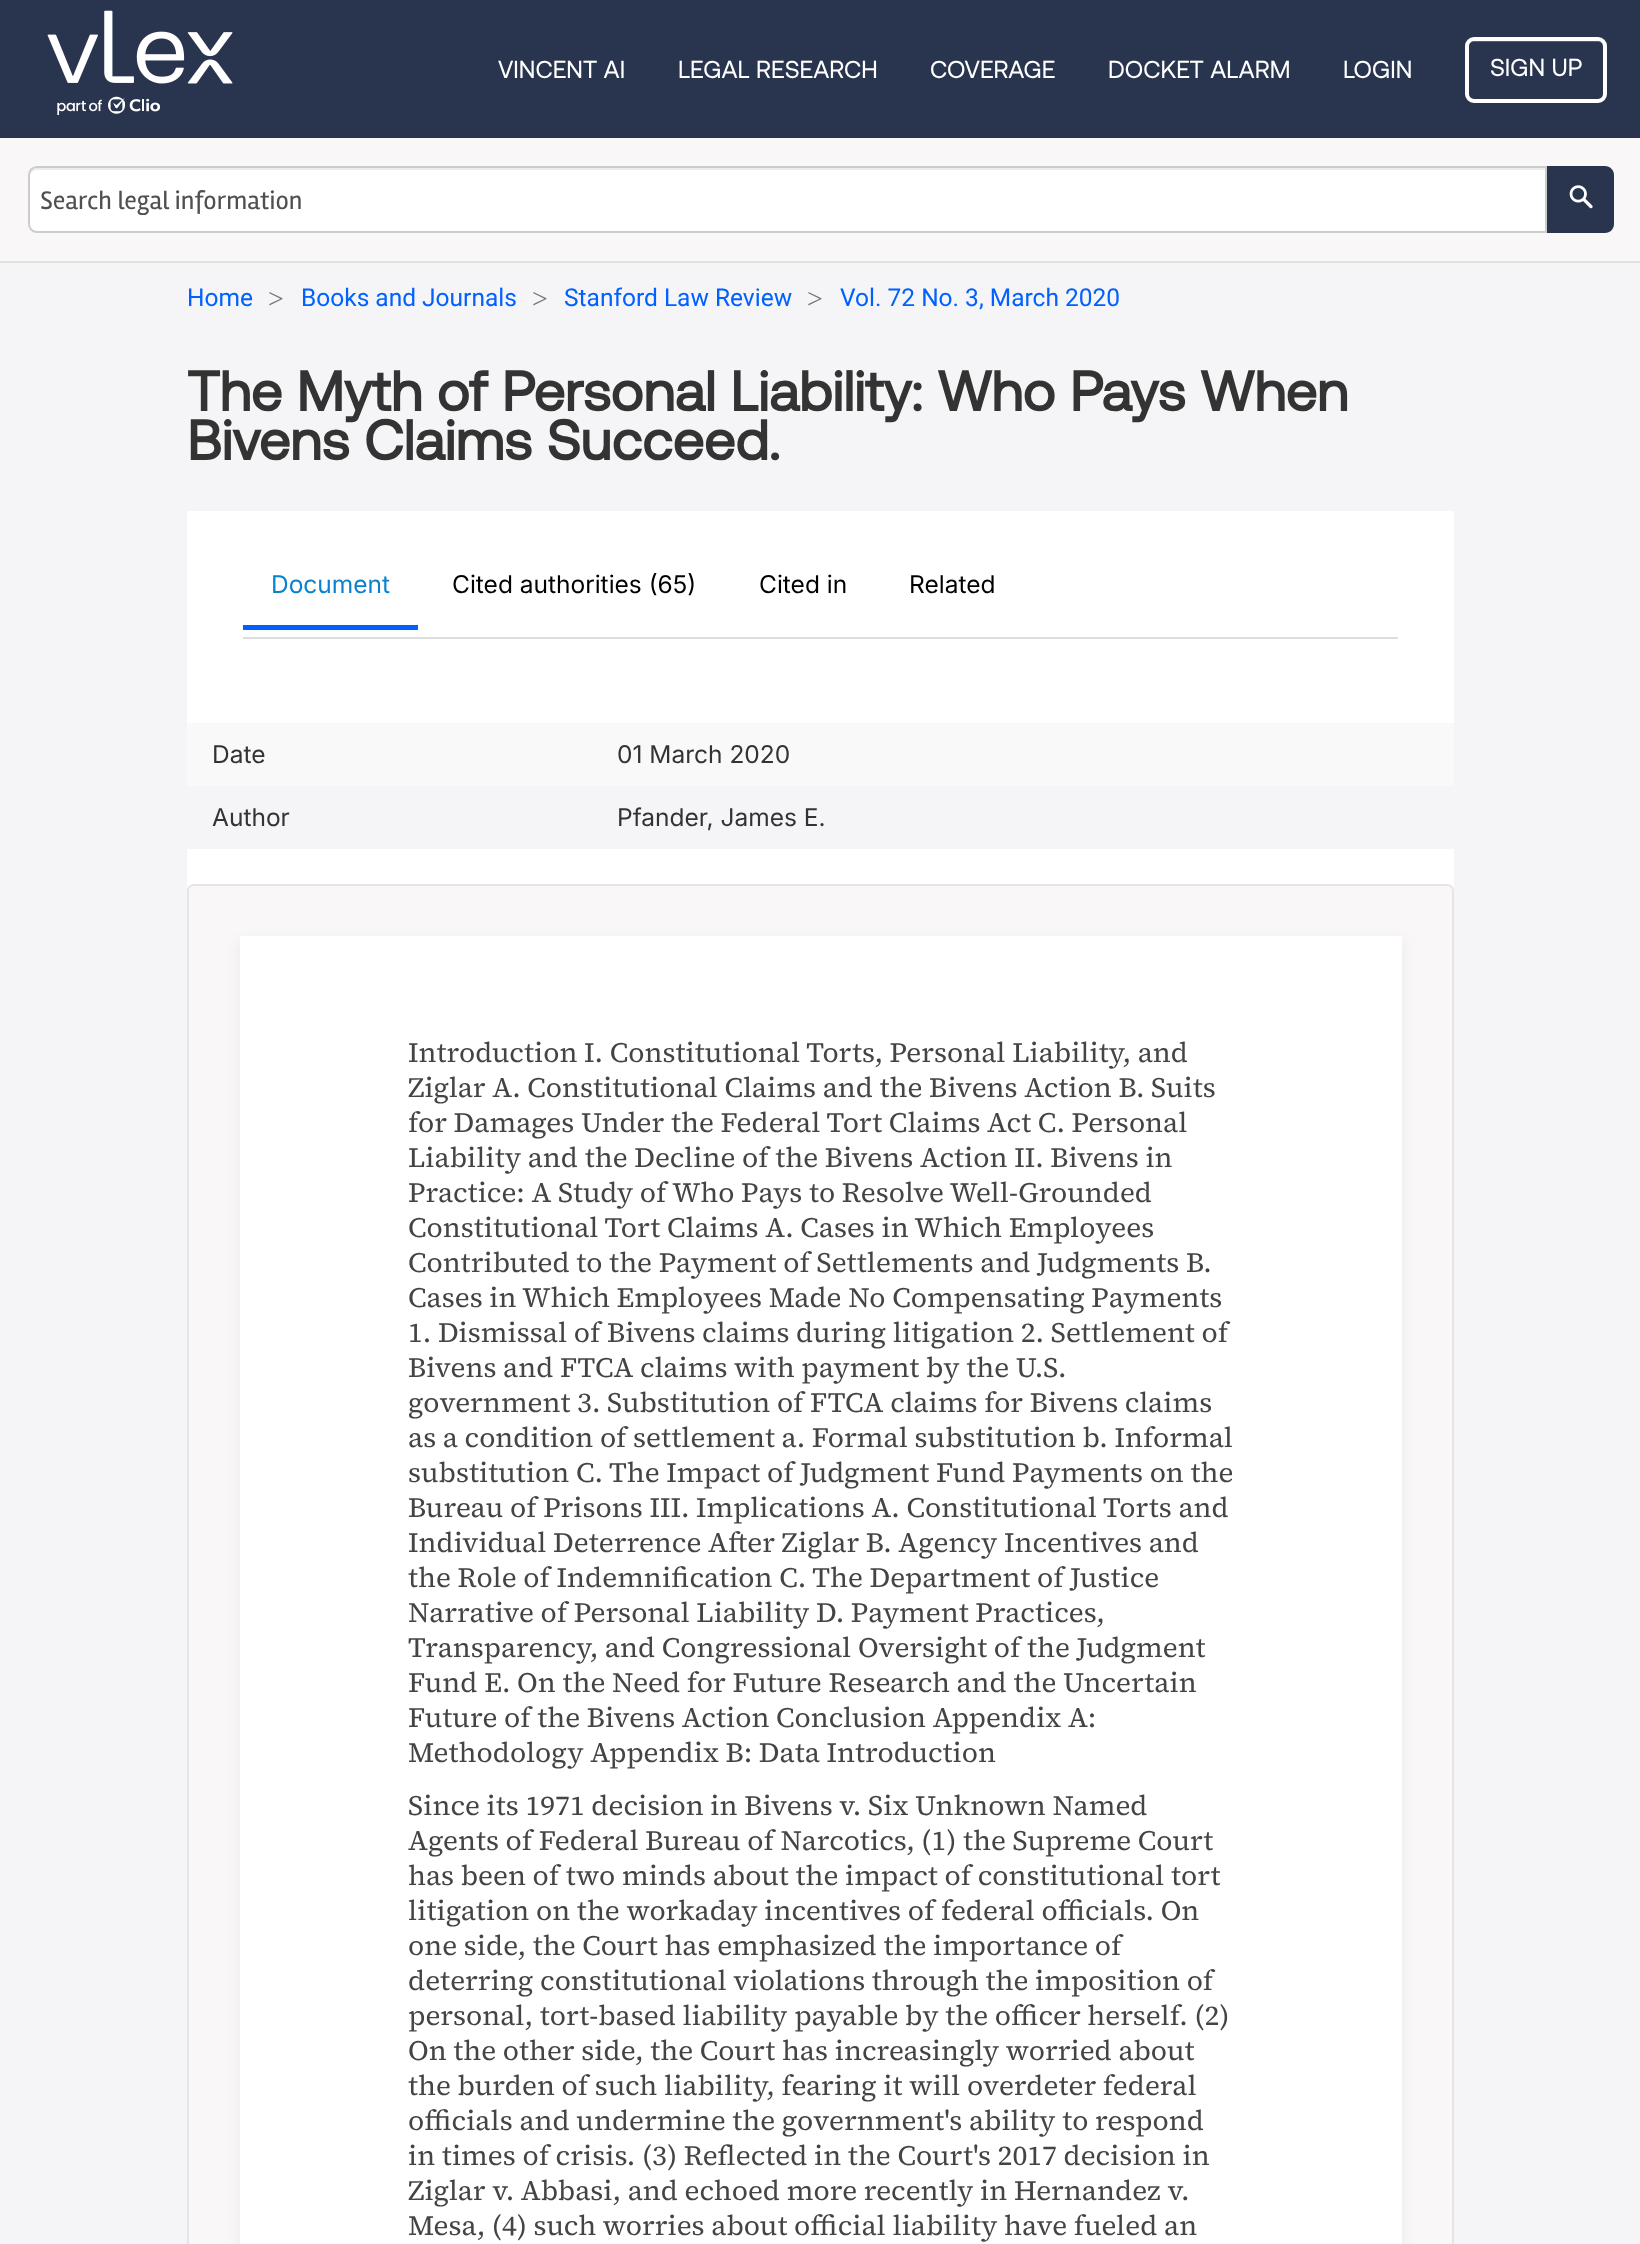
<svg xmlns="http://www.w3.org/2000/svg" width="1640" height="2244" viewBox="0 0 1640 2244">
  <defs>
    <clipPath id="clip1"><rect x="40" y="184" width="1495" height="31"/></clipPath>
    <filter id="blur1" x="-50%" y="-200%" width="200%" height="500%"><feGaussianBlur stdDeviation="7"/></filter>
  </defs>
  <rect width="100%" height="100%" fill="#f5f5f7"/>
  <rect x="0" y="0" width="1640" height="138" fill="#29354e"/>
  <image x="47" y="10" width="186" height="105" href="img1.png"/>
  <text x="498" y="78" font-family="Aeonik" font-size="24.5" fill="#ffffff">VINCENT AI</text>
  <text x="678" y="78" font-family="Aeonik" font-size="24.5" fill="#ffffff">LEGAL RESEARCH</text>
  <text x="930" y="78" font-family="Aeonik" font-size="24.5" fill="#ffffff">COVERAGE</text>
  <text x="1108" y="78" font-family="Aeonik" font-size="24.5" fill="#ffffff">DOCKET ALARM</text>
  <text x="1343" y="78" font-family="Aeonik" font-size="24.5" fill="#ffffff">LOGIN</text>
  <path d="M1474 42H1598C1601 42 1603 44 1603 47V45C1603 42 1601 40 1598 40H1473C1470 40 1468 42 1468 45V47C1468 44 1471 42 1474 42Z" fill="#545d71"/>
  <rect x="1467" y="39" width="138" height="62" rx="7" fill="none" stroke="#ffffff" stroke-width="4"/>
  <text x="1490" y="76" font-family="Aeonik" font-size="24.5" fill="#ffffff">SIGN UP</text>
  <rect x="0" y="138" width="1640" height="123" fill="#f9f7f7"/>
  <rect x="0" y="261" width="1640" height="2" fill="#e1e1e1"/>
  <path d="M37 166H1547V233H37C32 233 28 229 28 224V175C28 170 32 166 37 166Z" fill="#ffffff"/>
  <path d="M37 170H1545V168H37C32 168 30 173 30 177C30 173 33 170 37 170Z" fill="#ececec"/>
  <path d="M37 167H1546V232H37C32.5 232 29 228.5 29 224V175C29 170.5 32.5 167 37 167Z" fill="none" stroke="#cccccc" stroke-width="2"/>
  <g clip-path="url(#clip1)">
    <text x="40" y="209" font-family="Rambla" font-size="26.25" fill="#505050">Search legal information</text>
  </g>
  <path d="M1547 166H1605C1610 166 1614 170 1614 175V224C1614 229 1610 233 1605 233H1547Z" fill="#29354e"/>
  <image x="1569" y="185" width="24" height="24" href="img2.png"/>
  <text x="187" y="306" font-family="Roboto" font-size="24.5" fill="#0161ff">Home</text>
  <text x="268" y="308" font-family="Liberation Serif" font-size="28" fill="#71717a">&gt;</text>
  <text x="301" y="306" font-family="Roboto" font-size="24.5" fill="#0161ff">Books and Journals</text>
  <text x="532" y="308" font-family="Liberation Serif" font-size="28" fill="#71717a">&gt;</text>
  <text x="564" y="306" font-family="Roboto" font-size="24.5" fill="#0161ff">Stanford Law Review</text>
  <text x="807" y="308" font-family="Liberation Serif" font-size="28" fill="#71717a">&gt;</text>
  <text x="840" y="306" font-family="Roboto" font-size="24.5" fill="#0161ff">Vol. 72 No. 3, March 2020</text>
  <text x="187" y="411" font-family="Aeonik" font-size="56" font-weight="bold" fill="#333333">The Myth of Personal Liability: Who Pays When</text>
  <text x="187" y="460" font-family="Aeonik" font-size="56" font-weight="bold" fill="#333333">Bivens Claims Succeed.</text>
  <rect x="187" y="511" width="1267" height="380" fill="#ffffff"/>
  <rect x="243" y="637" width="1155" height="2" fill="#dddddd"/>
  <text x="271" y="593" font-family="Inter" font-size="24.5" fill="#0882cf">Document</text>
  <rect x="243" y="625" width="175" height="5" fill="#0161ff"/>
  <text x="452" y="593" font-family="Inter" font-size="24.5" fill="#000000">Cited authorities (65)</text>
  <text x="759" y="593" font-family="Inter" font-size="24.5" fill="#000000">Cited in</text>
  <text x="909" y="593" font-family="Inter" font-size="24.5" fill="#000000">Related</text>
  <rect x="187" y="723" width="1267" height="63" fill="#f9f9f9"/>
  <text x="212" y="763" font-family="Inter" font-size="24.5" fill="#333333">Date</text>
  <text x="617" y="763" font-family="Inter" font-size="24.5" fill="#333333">01 March 2020</text>
  <rect x="187" y="786" width="1267" height="63" fill="#f5f5f7"/>
  <text x="212" y="826" font-family="Inter" font-size="24.5" fill="#333333">Author</text>
  <text x="617" y="826" font-family="Inter" font-size="24.5" fill="#333333">Pfander, James E.</text>
  <path d="M194 884H1447C1451 884 1454 887 1454 891V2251H187V891C187 887 190 884 194 884Z" fill="#f9f7f7"/>
  <path d="M194 884H1447C1451 884 1454 887 1454 891V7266H187V891C187 887 190 884 194 884ZM194 886H1447C1450 886 1452 888 1452 891V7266H189V891C189 888 191 886 194 886Z" fill="#e7e4e4" fill-rule="evenodd"/>
  <rect x="240" y="940" width="1162" height="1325" fill="#000000" fill-opacity="0.06" filter="url(#blur1)"/>
  <rect x="240" y="936" width="1162" height="1308" fill="#ffffff"/>
  <text x="408" y="1062" font-family="'Source Serif 4'" font-size="28" fill="#464343">Introduction I. Constitutional Torts, Personal Liability, and</text>
  <text x="408" y="1097" font-family="'Source Serif 4'" font-size="28" fill="#464343">Ziglar A. Constitutional Claims and the Bivens Action B. Suits</text>
  <text x="408" y="1132" font-family="'Source Serif 4'" font-size="28" fill="#464343">for Damages Under the Federal Tort Claims Act C. Personal</text>
  <text x="408" y="1167" font-family="'Source Serif 4'" font-size="28" fill="#464343">Liability and the Decline of the Bivens Action II. Bivens in</text>
  <text x="408" y="1202" font-family="'Source Serif 4'" font-size="28" fill="#464343">Practice: A Study of Who Pays to Resolve Well-Grounded</text>
  <text x="408" y="1237" font-family="'Source Serif 4'" font-size="28" fill="#464343">Constitutional Tort Claims A. Cases in Which Employees</text>
  <text x="408" y="1272" font-family="'Source Serif 4'" font-size="28" fill="#464343">Contributed to the Payment of Settlements and Judgments B.</text>
  <text x="408" y="1307" font-family="'Source Serif 4'" font-size="28" fill="#464343">Cases in Which Employees Made No Compensating Payments</text>
  <text x="408" y="1342" font-family="'Source Serif 4'" font-size="28" fill="#464343">1. Dismissal of Bivens claims during litigation 2. Settlement of</text>
  <text x="408" y="1377" font-family="'Source Serif 4'" font-size="28" fill="#464343">Bivens and FTCA claims with payment by the U.S.</text>
  <text x="408" y="1412" font-family="'Source Serif 4'" font-size="28" fill="#464343">government 3. Substitution of FTCA claims for Bivens claims</text>
  <text x="408" y="1447" font-family="'Source Serif 4'" font-size="28" fill="#464343">as a condition of settlement a. Formal substitution b. Informal</text>
  <text x="408" y="1482" font-family="'Source Serif 4'" font-size="28" fill="#464343">substitution C. The Impact of Judgment Fund Payments on the</text>
  <text x="408" y="1517" font-family="'Source Serif 4'" font-size="28" fill="#464343">Bureau of Prisons III. Implications A. Constitutional Torts and</text>
  <text x="408" y="1552" font-family="'Source Serif 4'" font-size="28" fill="#464343">Individual Deterrence After Ziglar B. Agency Incentives and</text>
  <text x="408" y="1587" font-family="'Source Serif 4'" font-size="28" fill="#464343">the Role of Indemnification C. The Department of Justice</text>
  <text x="408" y="1622" font-family="'Source Serif 4'" font-size="28" fill="#464343">Narrative of Personal Liability D. Payment Practices,</text>
  <text x="408" y="1657" font-family="'Source Serif 4'" font-size="28" fill="#464343">Transparency, and Congressional Oversight of the Judgment</text>
  <text x="408" y="1692" font-family="'Source Serif 4'" font-size="28" fill="#464343">Fund E. On the Need for Future Research and the Uncertain</text>
  <text x="408" y="1727" font-family="'Source Serif 4'" font-size="28" fill="#464343">Future of the Bivens Action Conclusion Appendix A:</text>
  <text x="408" y="1762" font-family="'Source Serif 4'" font-size="28" fill="#464343">Methodology Appendix B: Data Introduction</text>
  <text x="408" y="1815" font-family="'Source Serif 4'" font-size="28" fill="#464343">Since its 1971 decision in Bivens v. Six Unknown Named</text>
  <text x="408" y="1850" font-family="'Source Serif 4'" font-size="28" fill="#464343">Agents of Federal Bureau of Narcotics, (1) the Supreme Court</text>
  <text x="408" y="1885" font-family="'Source Serif 4'" font-size="28" fill="#464343">has been of two minds about the impact of constitutional tort</text>
  <text x="408" y="1920" font-family="'Source Serif 4'" font-size="28" fill="#464343">litigation on the workaday incentives of federal officials. On</text>
  <text x="408" y="1955" font-family="'Source Serif 4'" font-size="28" fill="#464343">one side, the Court has emphasized the importance of</text>
  <text x="408" y="1990" font-family="'Source Serif 4'" font-size="28" fill="#464343">deterring constitutional violations through the imposition of</text>
  <text x="408" y="2025" font-family="'Source Serif 4'" font-size="28" fill="#464343">personal, tort-based liability payable by the officer herself. (2)</text>
  <text x="408" y="2060" font-family="'Source Serif 4'" font-size="28" fill="#464343">On the other side, the Court has increasingly worried about</text>
  <text x="408" y="2095" font-family="'Source Serif 4'" font-size="28" fill="#464343">the burden of such liability, fearing it will overdeter federal</text>
  <text x="408" y="2130" font-family="'Source Serif 4'" font-size="28" fill="#464343">officials and undermine the government's ability to respond</text>
  <text x="408" y="2165" font-family="'Source Serif 4'" font-size="28" fill="#464343">in times of crisis. (3) Reflected in the Court's 2017 decision in</text>
  <text x="408" y="2200" font-family="'Source Serif 4'" font-size="28" fill="#464343">Ziglar v. Abbasi, and echoed more recently in Hernandez v.</text>
  <text x="408" y="2235" font-family="'Source Serif 4'" font-size="28" fill="#464343">Mesa, (4) such worries about official liability have fueled an</text>
</svg>
